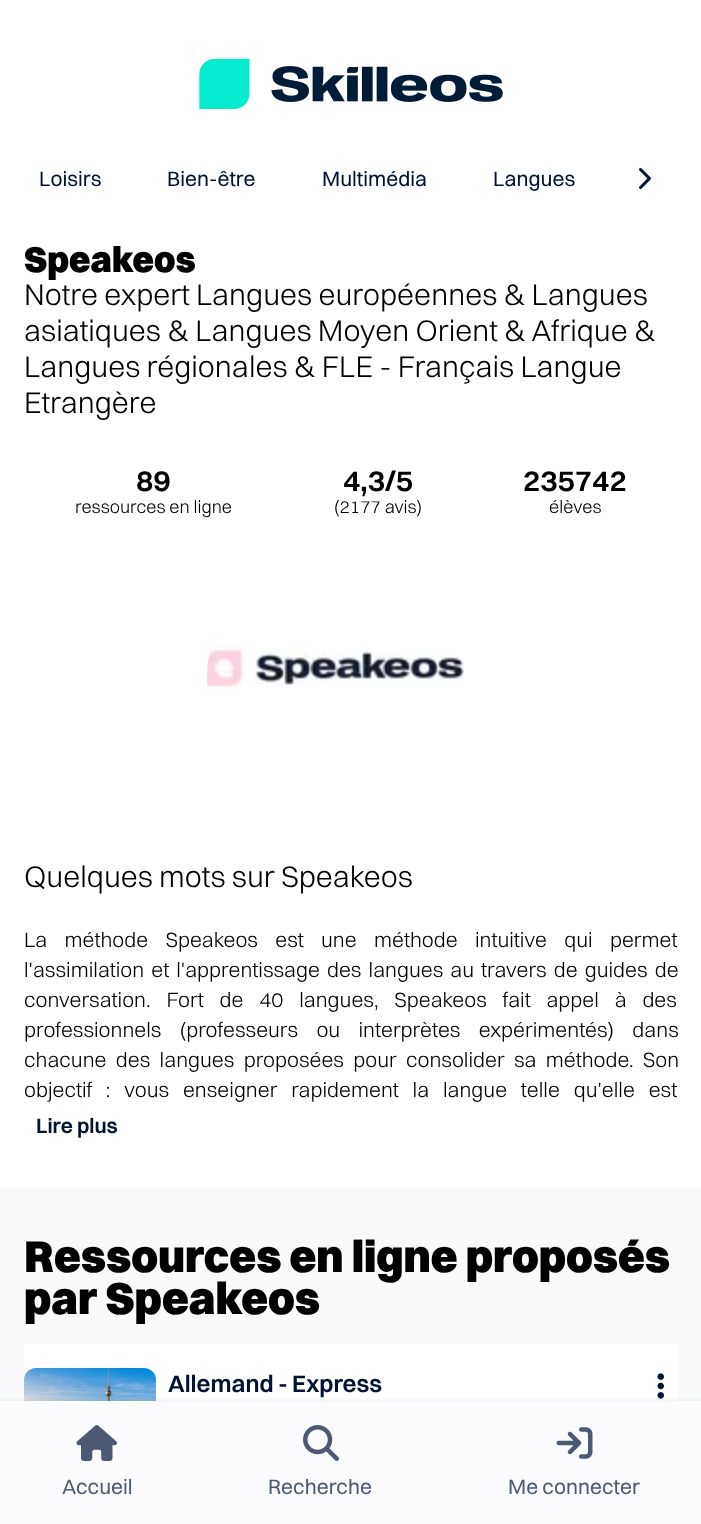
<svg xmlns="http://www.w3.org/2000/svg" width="701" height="1524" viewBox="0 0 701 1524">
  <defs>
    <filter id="blur1" x="-50%" y="-200%" width="200%" height="500%"><feGaussianBlur stdDeviation="1.5"/></filter>
  </defs>
  <rect width="100%" height="100%" fill="#ffffff"/>
  <image x="199" y="58" width="304" height="51" href="img1.png"/>
  <text x="39" y="186" font-family="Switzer" font-size="21" fill="#001436">Loisirs</text>
  <text x="167" y="186" font-family="Switzer" font-size="21" fill="#001436">Bien-être</text>
  <text x="322" y="186" font-family="Switzer" font-size="21" fill="#001436">Multimédia</text>
  <text x="493" y="186" font-family="Switzer" font-size="21" fill="#001436">Langues</text>
  <image x="639" y="168" width="12" height="21" href="img2.png"/>
  <rect x="0" y="1188" width="701" height="213" fill="#f8fafc"/>
  <rect x="24" y="1344" width="654" height="57" fill="#ffffff"/>
  <image x="24" y="1368" width="132" height="33" href="img7.png"/>
  <image x="657" y="1373" width="7" height="26" href="img8.png"/>
  <rect x="0" y="1400" width="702" height="123" fill="#001436" fill-opacity="0.06" filter="url(#blur1)"/>
  <rect x="0" y="1401" width="701" height="123" fill="#fcfcff"/>
  <image x="76" y="1425" width="41" height="36" href="img3.png"/>
  <text x="62" y="1494" font-family="Switzer" font-size="21" fill="#4c5974">Accueil</text>
  <image x="303" y="1425" width="36" height="36" href="img4.png"/>
  <text x="268" y="1494" font-family="Switzer" font-size="21" fill="#4c5974">Recherche</text>
  <image x="556" y="1427" width="37" height="32" href="img5.png"/>
  <text x="508" y="1494" font-family="Switzer" font-size="21" fill="#4c5974">Me connecter</text>
  <text x="24" y="272" font-family="Switzer" font-size="36" font-weight="900" fill="#000000">Speakeos</text>
  <text x="24" y="305" font-family="Switzer" font-size="30" font-weight="300" fill="#000000">Notre expert Langues européennes &amp; Langues</text>
  <text x="24" y="341" font-family="Switzer" font-size="30" font-weight="300" fill="#000000">asiatiques &amp; Langues Moyen Orient &amp; Afrique &amp;</text>
  <text x="24" y="377" font-family="Switzer" font-size="30" font-weight="300" fill="#000000">Langues régionales &amp; FLE - Français Langue</text>
  <text x="24" y="413" font-family="Switzer" font-size="30" font-weight="300" fill="#000000">Etrangère</text>
  <text x="136" y="491" font-family="Switzer" font-size="30" font-weight="600" fill="#000000">89</text>
  <text x="75" y="513" font-family="Switzer" font-size="18" font-weight="300" fill="#000000">ressources en ligne</text>
  <text x="343" y="491" font-family="Switzer" font-size="30" font-weight="600" fill="#000000">4,3/5</text>
  <text x="334" y="513" font-family="Switzer" font-size="18" font-weight="300" fill="#000000">(2177 avis)</text>
  <text x="523" y="491" font-family="Switzer" font-size="30" font-weight="600" fill="#000000">235742</text>
  <text x="549" y="513" font-family="Switzer" font-size="18" font-weight="300" fill="#000000">élèves</text>
  <image x="207" y="646" width="257" height="42" href="img6.png"/>
  <text x="24" y="887" font-family="Switzer" font-size="30" font-weight="300" fill="#000000">Quelques mots sur Speakeos</text>
  <text x="24" y="947" word-spacing="13" font-family="Switzer" font-size="21" font-weight="300" fill="#000000">La méthode Speakeos est une méthode intuitive qui permet</text>
  <text x="24" y="977" word-spacing="2.75" font-family="Switzer" font-size="21" font-weight="300" fill="#000000">l'assimilation et l'apprentissage des langues au travers de guides de</text>
  <text x="24" y="1007" word-spacing="11.5" font-family="Switzer" font-size="21" font-weight="300" fill="#000000">conversation. Fort de 40 langues, Speakeos fait appel à des</text>
  <text x="24" y="1037" word-spacing="14" font-family="Switzer" font-size="21" font-weight="300" fill="#000000">professionnels (professeurs ou interprètes expérimentés) dans</text>
  <text x="24" y="1067" word-spacing="5" font-family="Switzer" font-size="21" font-weight="300" fill="#000000">chacune des langues proposées pour consolider sa méthode. Son</text>
  <text x="24" y="1097" word-spacing="9.5" font-family="Switzer" font-size="21" font-weight="300" fill="#000000">objectif : vous enseigner rapidement la langue telle qu'elle est</text>
  <text x="36" y="1133" font-family="Switzer" font-size="21" font-weight="600" fill="#001436">Lire plus</text>
  <text x="24" y="1272" font-family="Switzer" font-size="45" font-weight="900" fill="#000000">Ressources en ligne proposés</text>
  <text x="24" y="1314" font-family="Switzer" font-size="45" font-weight="900" fill="#000000">par Speakeos</text>
  <text x="168" y="1392" font-family="Switzer" font-size="24" font-weight="600" fill="#001436">Allemand - Express</text>
</svg>
